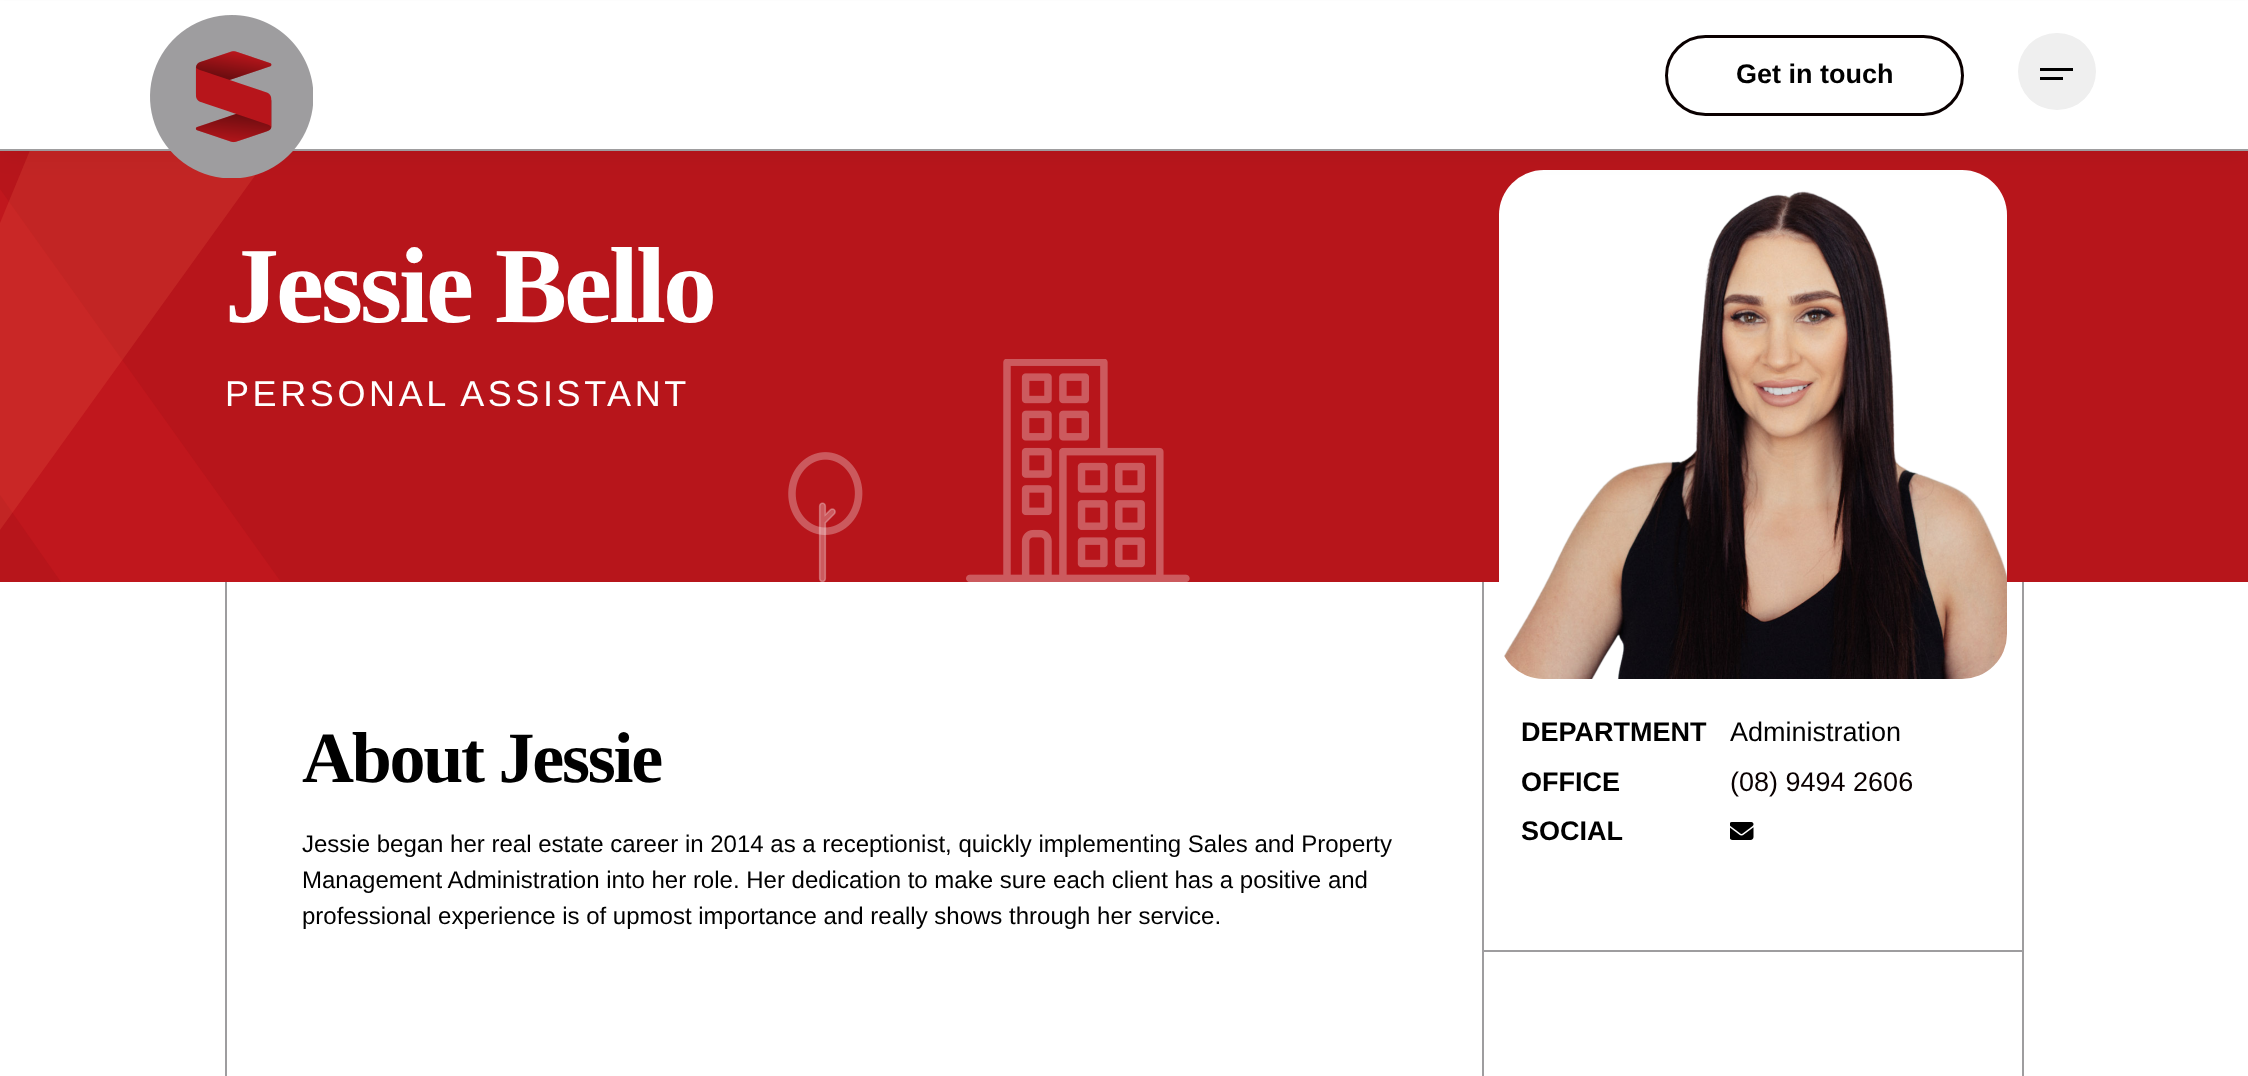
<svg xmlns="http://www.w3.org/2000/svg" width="2248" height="1076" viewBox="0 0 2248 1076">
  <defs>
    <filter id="blur1" x="-50%" y="-200%" width="200%" height="500%"><feGaussianBlur stdDeviation="11"/></filter>
  </defs>
  <rect width="100%" height="100%" fill="#ffffff"/>
  <rect x="226" y="568" width="1257" height="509" fill="none" stroke="#9e9d9f" stroke-width="2"/>
  <rect x="0" y="151" width="2248" height="431" fill="#b7151b"/>
  <path d="M61 582H281L0 189V495Z" fill="#c0171d"/>
  <path d="M339 59L68 58L0 223V530Z" fill="#f2684b" fill-opacity="0.2"/>
  <rect x="1499" y="170" width="508" height="510" rx="45" fill="#ffffff"/>
  <image x="1504" y="191" width="503" height="488" href="img2.png"/>
  <rect x="0" y="8" width="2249" height="150" fill="#000000" fill-opacity="0.04" filter="url(#blur1)"/>
  <rect x="0" y="1" width="2248" height="148" fill="#ffffff"/>
  <rect x="0" y="149" width="2248" height="2" fill="#9e9d9f"/>
  <image x="150" y="15" width="163" height="163" href="img1.png"/>
  <rect x="1666.5" y="36.5" width="296" height="78" rx="39" fill="none" stroke="#0a0000" stroke-width="3"/>
  <text x="1736" y="83" font-family="Liberation Sans" font-size="27" font-weight="bold" fill="#000000">Get in touch</text>
  <rect x="2018" y="33" width="78" height="77" rx="38.5" fill="#efefef"/>
  <rect x="2040" y="68" width="33" height="3" fill="#000000"/>
  <rect x="2040" y="77" width="23" height="3" fill="#000000"/>
  <text x="225" y="322" font-family="Liberation Serif" font-size="108" font-weight="bold" letter-spacing="-3" fill="#ffffff">Jessie Bello</text>
  <text x="225" y="406" font-family="Liberation Sans" font-size="36" letter-spacing="3.6" fill="#ffffff">PERSONAL ASSISTANT</text>
  <image x="788" y="452" width="75" height="130" href="img3.png"/>
  <image x="966" y="359" width="224" height="223" href="img4.png"/>
  <text x="302" y="782" font-family="Liberation Serif" font-size="72" font-weight="bold" letter-spacing="-2.25" fill="#000000">About Jessie</text>
  <text x="302" y="852" font-family="Liberation Sans" font-size="24" fill="#000000">Jessie began her real estate career in 2014 as a receptionist, quickly implementing Sales and Property</text>
  <text x="302" y="888" font-family="Liberation Sans" font-size="24" fill="#000000">Management Administration into her role. Her dedication to make sure each client has a positive and</text>
  <text x="302" y="924" font-family="Liberation Sans" font-size="24" fill="#000000">professional experience is of upmost importance and really shows through her service.</text>
  <rect x="2022" y="582" width="2" height="494" fill="#9e9d9f"/>
  <rect x="1484" y="950" width="538" height="2" fill="#9e9d9f"/>
  <text x="1521" y="741" font-family="Liberation Sans" font-size="27" font-weight="bold" fill="#000000">DEPARTMENT</text>
  <text x="1730" y="741" font-family="Liberation Sans" font-size="27" fill="#000000">Administration</text>
  <text x="1521" y="791" font-family="Liberation Sans" font-size="27" font-weight="bold" fill="#000000">OFFICE</text>
  <text x="1730" y="791" font-family="Liberation Sans" font-size="27" fill="#0a0000">(08) 9494 2606</text>
  <text x="1521" y="840" font-family="Liberation Sans" font-size="27" font-weight="bold" fill="#000000">SOCIAL</text>
  <image x="1730" y="822" width="24" height="18" href="img5.png"/>
</svg>
